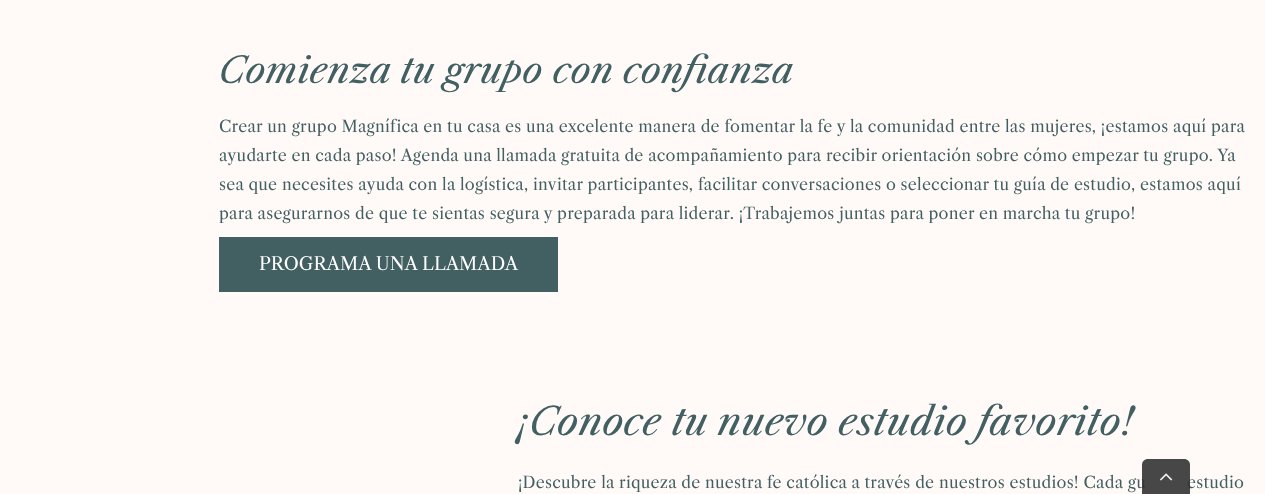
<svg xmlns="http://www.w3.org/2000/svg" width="1265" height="494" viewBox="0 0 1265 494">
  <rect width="100%" height="100%" fill="#fffaf7"/>
  <text x="219" y="83" font-family="Libre Caslon Text" font-size="36" font-style="italic" fill="#425f62">Comienza tu grupo con confianza</text>
  <text x="219" y="132" font-family="Libre Caslon Text" font-size="16" letter-spacing="0.24" fill="#425f62">Crear un grupo Magnífica en tu casa es una excelente manera de fomentar la fe y la comunidad entre las mujeres, ¡estamos aquí para</text>
  <text x="219" y="161" font-family="Libre Caslon Text" font-size="16" letter-spacing="0.24" fill="#425f62">ayudarte en cada paso! Agenda una llamada gratuita de acompañamiento para recibir orientación sobre cómo empezar tu grupo. Ya</text>
  <text x="219" y="190" font-family="Libre Caslon Text" font-size="16" letter-spacing="0.24" fill="#425f62">sea que necesites ayuda con la logística, invitar participantes, facilitar conversaciones o seleccionar tu guía de estudio, estamos aquí</text>
  <text x="219" y="219" font-family="Libre Caslon Text" font-size="16" letter-spacing="0.24" fill="#425f62">para asegurarnos de que te sientas segura y preparada para liderar. ¡Trabajemos juntas para poner en marcha tu grupo!</text>
  <rect x="219" y="237" width="339" height="55" fill="#425f62"/>
  <text x="259" y="270" font-family="Libre Caslon Text" font-size="18" fill="#ffffff">PROGRAMA UNA LLAMADA</text>
  <text x="518" y="435" font-family="Libre Caslon Text" font-size="38" font-style="italic" fill="#425f62">¡Conoce tu nuevo estudio favorito!</text>
  <text x="518" y="488" font-family="Libre Caslon Text" font-size="16" letter-spacing="0.24" fill="#425f62">¡Descubre la riqueza de nuestra fe católica a través de nuestros estudios! Cada gu</text>
  <text x="1187" y="488" font-family="Libre Caslon Text" font-size="16" letter-spacing="0.24" fill="#425f62">estudio</text>
  <path d="M1148 459H1184C1187.5 459 1190 461.5 1190 465V494H1142V465C1142 461.5 1144.5 459 1148 459Z" fill="#333333" fill-opacity="0.9"/>
  <image x="1160" y="473" width="13" height="8" href="img1.png"/>
</svg>
